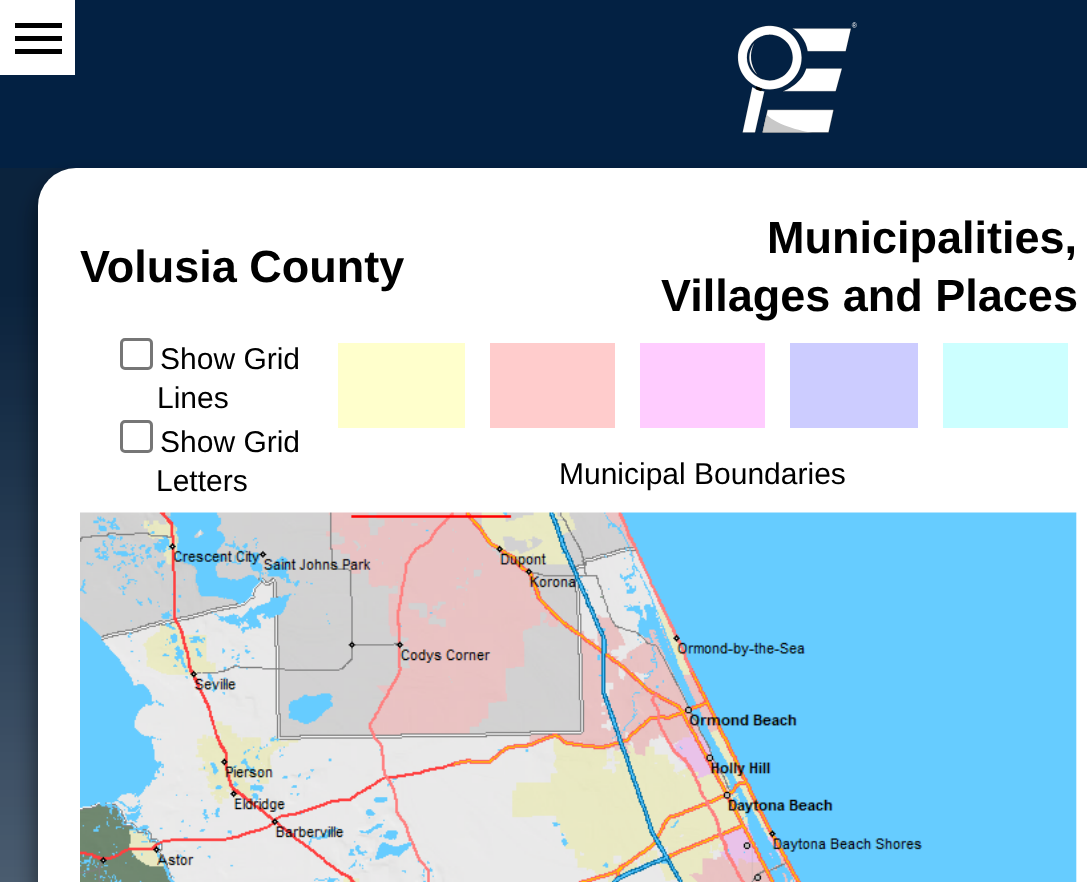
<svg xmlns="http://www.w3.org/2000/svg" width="1087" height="882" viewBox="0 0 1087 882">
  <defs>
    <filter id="blur1" x="-50%" y="-200%" width="200%" height="500%"><feGaussianBlur stdDeviation="12.5"/></filter>
    <filter id="blur2" x="-50%" y="-200%" width="200%" height="500%"><feGaussianBlur stdDeviation="10"/></filter>
  </defs>
  <rect width="100%" height="100%" fill="#ffffff"/>
  <image x="0" y="168" width="76" height="714" href="img1.png"/>
  <rect x="0" y="0" width="1087" height="168" fill="#032143"/>
  <image x="737" y="22" width="120" height="111" href="img2.png"/>
  <rect x="0" y="0" width="75" height="75" fill="#ffffff"/>
  <path d="M15 54H62V49H15ZM15 41H62V36H15ZM15 23V28H62V23Z" fill="#000000"/>
  <rect x="38" y="183" width="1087" height="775" rx="38" fill="#000000" fill-opacity="0.4" filter="url(#blur1)"/>
  <rect x="38" y="178" width="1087" height="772" rx="38" fill="#000000" fill-opacity="0.2" filter="url(#blur2)"/>
  <rect x="38" y="168" width="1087" height="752" rx="38" fill="#ffffff"/>
  <text x="80" y="282" font-family="Liberation Sans" font-size="45" font-weight="bold" fill="#000000">Volusia County</text>
  <text x="767" y="253" font-family="Liberation Sans" font-size="45" font-weight="bold" fill="#000000">Municipalities,</text>
  <text x="661" y="311" font-family="Liberation Sans" font-size="45" font-weight="bold" fill="#000000">Villages and Places</text>
  <rect x="121.5" y="339.5" width="30" height="29" rx="3.5" fill="none" stroke="#767676" stroke-width="3"/>
  <text x="160" y="369" font-family="Liberation Sans" font-size="30" fill="#000000">Show Grid</text>
  <text x="157" y="408" font-family="Liberation Sans" font-size="30" fill="#000000">Lines</text>
  <rect x="121.5" y="421.5" width="30" height="30" rx="3.5" fill="none" stroke="#767676" stroke-width="3"/>
  <text x="160" y="452" font-family="Liberation Sans" font-size="30" fill="#000000">Show Grid</text>
  <text x="156" y="491" font-family="Liberation Sans" font-size="30" fill="#000000">Letters</text>
  <rect x="338" y="343" width="127" height="85" fill="#ffffcc"/>
  <rect x="490" y="343" width="125" height="85" fill="#ffcccc"/>
  <rect x="640" y="343" width="125" height="85" fill="#ffccff"/>
  <rect x="790" y="343" width="128" height="85" fill="#ccccff"/>
  <rect x="943" y="343" width="125" height="85" fill="#ccffff"/>
  <text x="559" y="484" font-family="Liberation Sans" font-size="30" fill="#000000">Municipal Boundaries</text>
  <image x="80" y="512" width="997" height="370" href="img3.png"/>
</svg>
